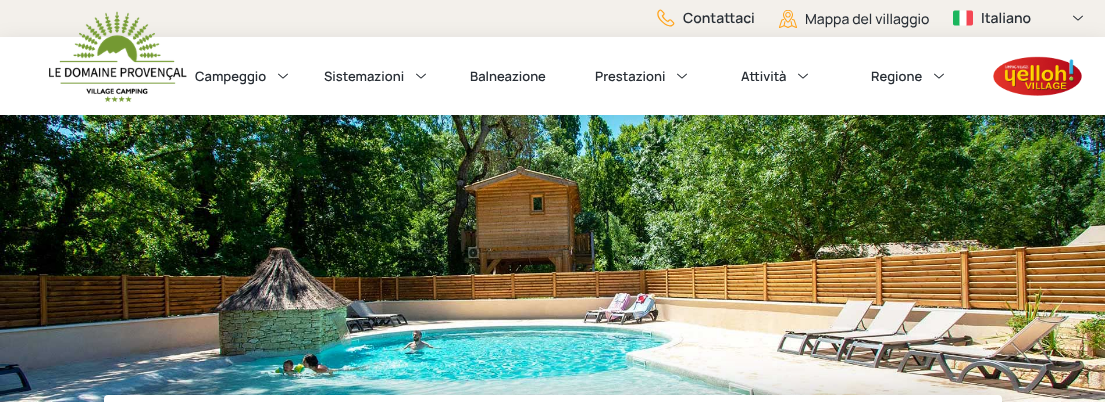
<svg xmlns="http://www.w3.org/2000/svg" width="1105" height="402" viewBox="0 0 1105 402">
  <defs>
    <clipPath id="clip1"><path d="M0 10H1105V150H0ZM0 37H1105V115H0Z" clip-rule="evenodd"/></clipPath>
    <filter id="blur1" x="-50%" y="-200%" width="200%" height="500%"><feGaussianBlur stdDeviation="10"/></filter>
    <filter id="blur2" x="-50%" y="-200%" width="200%" height="500%"><feGaussianBlur stdDeviation="22"/></filter>
  </defs>
  <rect width="100%" height="100%" fill="#ffffff"/>
  <rect x="0" y="0" width="1105" height="37" fill="#f3f0eb"/>
  <image x="0" y="115" width="1105" height="287" href="img9.png"/>
  <g clip-path="url(#clip1)">
    <rect x="0" y="41" width="1105" height="78" fill="#000000" fill-opacity="0.1" filter="url(#blur1)"/>
  </g>
  <image x="657" y="9" width="18" height="18" href="img1.png"/>
  <text x="683" y="23" font-family="Manrope" font-size="14" font-weight="600" fill="#292f36">Contattaci</text>
  <image x="779" y="10" width="18" height="18" href="img2.png"/>
  <text x="805" y="24" font-family="Manrope" font-size="14" font-weight="500" fill="#292f36">Mappa del villaggio</text>
  <image x="953" y="10" width="20" height="16" href="img3.png"/>
  <text x="981" y="23" font-family="Manrope" font-size="14" font-weight="600" fill="#292f36">Italiano</text>
  <image x="1073" y="15" width="10" height="6" href="img4.png"/>
  <image x="49" y="11" width="138" height="92" href="img5.png"/>
  <image x="993" y="56" width="89" height="40" href="img6.png"/>
  <text x="195" y="81" font-family="Manrope" font-size="13" font-weight="600" fill="#292f36">Campeggio</text>
  <image x="278" y="73" width="10" height="6" href="img7.png"/>
  <text x="324" y="81" font-family="Manrope" font-size="13" font-weight="600" fill="#292f36">Sistemazioni</text>
  <image x="416" y="73" width="10" height="6" href="img8.png"/>
  <text x="470" y="81" font-family="Manrope" font-size="13" font-weight="600" fill="#292f36">Balneazione</text>
  <text x="595" y="81" font-family="Manrope" font-size="13" font-weight="600" fill="#292f36">Prestazioni</text>
  <image x="677" y="73" width="10" height="6" href="img8.png"/>
  <text x="741" y="81" font-family="Manrope" font-size="13" font-weight="600" fill="#292f36">Attività</text>
  <image x="798" y="73" width="10" height="6" href="img8.png"/>
  <text x="871" y="81" font-family="Manrope" font-size="13" font-weight="600" fill="#292f36">Regione</text>
  <image x="934" y="73" width="10" height="6" href="img8.png"/>
  <rect x="104" y="399" width="898" height="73" rx="4" fill="#000000" fill-opacity="0.25" filter="url(#blur2)"/>
  <rect x="104" y="395" width="898" height="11" rx="4" fill="#ffffff"/>
</svg>
